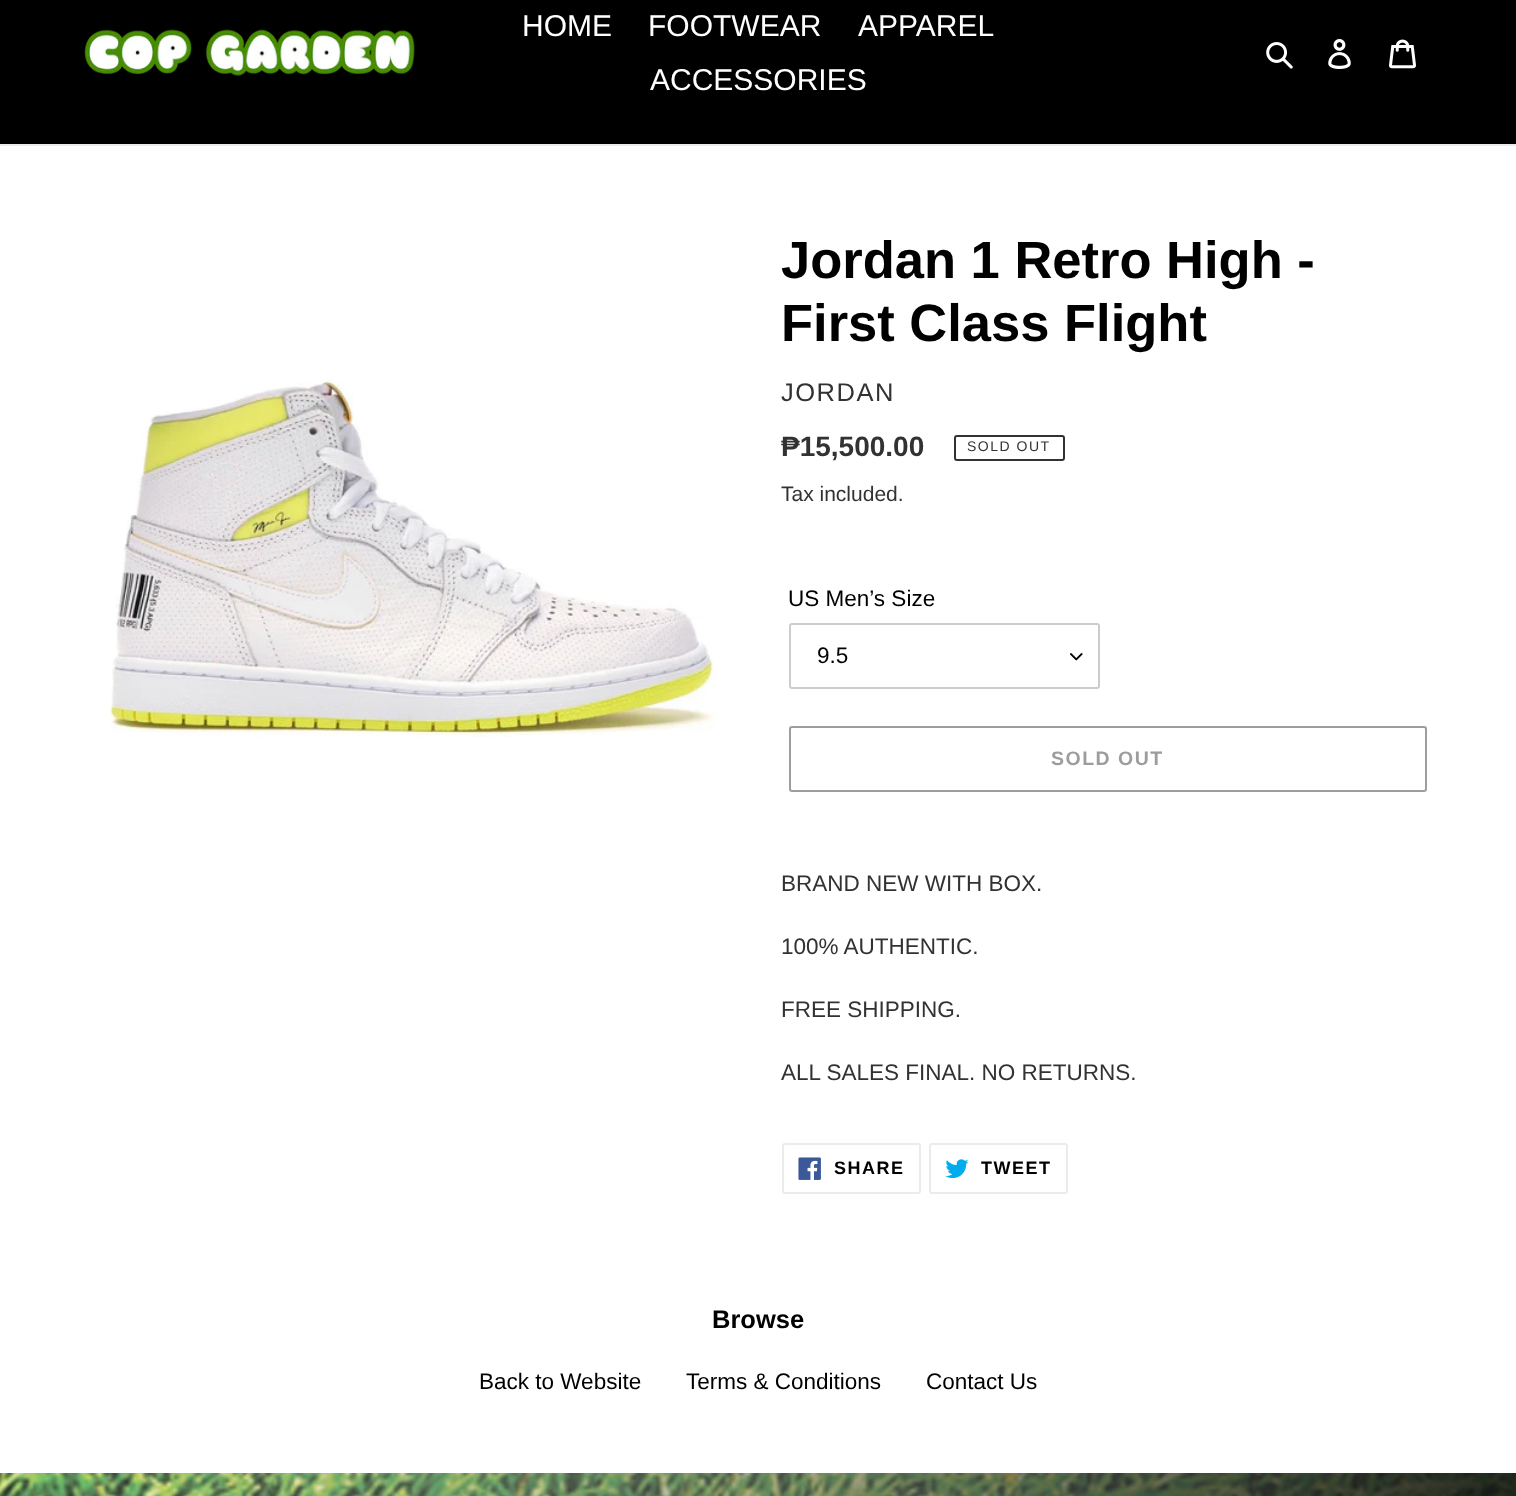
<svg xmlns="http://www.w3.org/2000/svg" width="1516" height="1496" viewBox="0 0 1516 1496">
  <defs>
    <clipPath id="clip1"><rect x="818" y="642" width="238" height="27"/></clipPath>
  </defs>
  <rect width="100%" height="100%" fill="#ffffff"/>
  <rect x="0" y="0" width="1516" height="144" fill="#000000"/>
  <rect x="0" y="144" width="1516" height="2" fill="#ebebeb"/>
  <image x="84" y="29" width="331" height="47" href="img1.png"/>
  <text x="522" y="36" font-family="Liberation Sans" font-size="30" fill="#ffffff">HOME</text>
  <text x="648" y="36" font-family="Liberation Sans" font-size="30" fill="#ffffff">FOOTWEAR</text>
  <text x="858" y="36" font-family="Liberation Sans" font-size="30" fill="#ffffff">APPAREL</text>
  <text x="650" y="90" font-family="Liberation Sans" font-size="30" fill="#ffffff">ACCESSORIES</text>
  <image x="1266" y="42" width="27" height="27" href="img2.png"/>
  <image x="1328" y="39" width="23" height="30" href="img3.png"/>
  <image x="1389" y="39" width="27" height="30" href="img4.png"/>
  <image x="110" y="376" width="606" height="362" href="img5.png"/>
  <text x="781" y="278" font-family="Liberation Sans" font-size="52.5" font-weight="bold" fill="#000000">Jordan 1 Retro High -</text>
  <text x="781" y="341" font-family="Liberation Sans" font-size="52.5" font-weight="bold" fill="#000000">First Class Flight</text>
  <text x="781" y="401" font-family="Liberation Sans" font-size="25.5" letter-spacing="1.5" fill="#333232">JORDAN</text>
  <text x="781" y="456" font-family="Liberation Sans" font-size="28" font-weight="bold" fill="#333232">₱15,500.00</text>
  <rect x="955" y="436" width="109" height="24" rx="2" fill="none" stroke="#333232" stroke-width="2"/>
  <text x="967" y="451" font-family="Liberation Sans" font-size="14" letter-spacing="1.5" fill="#333232">SOLD OUT</text>
  <text x="781" y="501" font-family="Liberation Sans" font-size="21" fill="#333232">Tax included.</text>
  <text x="788" y="606" font-family="Liberation Sans" font-size="22.5" fill="#000000">US Men’s Size</text>
  <image x="1070" y="653" width="13" height="8" href="img6.png"/>
  <rect x="790" y="624" width="309" height="64" rx="2" fill="none" stroke="#cccccc" stroke-width="2"/>
  <g clip-path="url(#clip1)">
    <text x="817" y="663" font-family="Liberation Sans" font-size="22.5" fill="#000000">9.5</text>
  </g>
  <rect x="790" y="727" width="636" height="64" rx="2" fill="none" stroke="#9d9d9d" stroke-width="2"/>
  <text x="1051" y="765" font-family="Liberation Sans" font-size="19.5" font-weight="bold" letter-spacing="1.5" fill="#9d9d9d">SOLD OUT</text>
  <text x="781" y="891" font-family="Liberation Sans" font-size="22.5" fill="#333232">BRAND NEW WITH BOX.</text>
  <text x="781" y="954" font-family="Liberation Sans" font-size="22.5" fill="#333232">100% AUTHENTIC.</text>
  <text x="781" y="1017" font-family="Liberation Sans" font-size="22.5" fill="#333232">FREE SHIPPING.</text>
  <text x="781" y="1080" font-family="Liberation Sans" font-size="22.5" fill="#333232">ALL SALES FINAL. NO RETURNS.</text>
  <rect x="783" y="1144" width="137" height="49" rx="2" fill="none" stroke="#ebebeb" stroke-width="2"/>
  <image x="798" y="1157" width="23" height="23" href="img7.png"/>
  <text x="834" y="1174" font-family="Liberation Sans" font-size="18" font-weight="bold" letter-spacing="1.5" fill="#000000">SHARE</text>
  <rect x="930" y="1144" width="137" height="49" rx="2" fill="none" stroke="#ebebeb" stroke-width="2"/>
  <image x="945" y="1159" width="24" height="20" href="img8.png"/>
  <text x="981" y="1174" font-family="Liberation Sans" font-size="18" font-weight="bold" letter-spacing="1.5" fill="#000000">TWEET</text>
  <text x="712" y="1328" font-family="Liberation Sans" font-size="25.5" font-weight="bold" fill="#000000">Browse</text>
  <text x="479" y="1389" font-family="Liberation Sans" font-size="22.5" fill="#000000">Back to Website</text>
  <text x="686" y="1389" font-family="Liberation Sans" font-size="22.5" fill="#000000">Terms &amp; Conditions</text>
  <text x="926" y="1389" font-family="Liberation Sans" font-size="22.5" fill="#000000">Contact Us</text>
  <image x="0" y="1473" width="1516" height="23" href="img9.png"/>
</svg>
